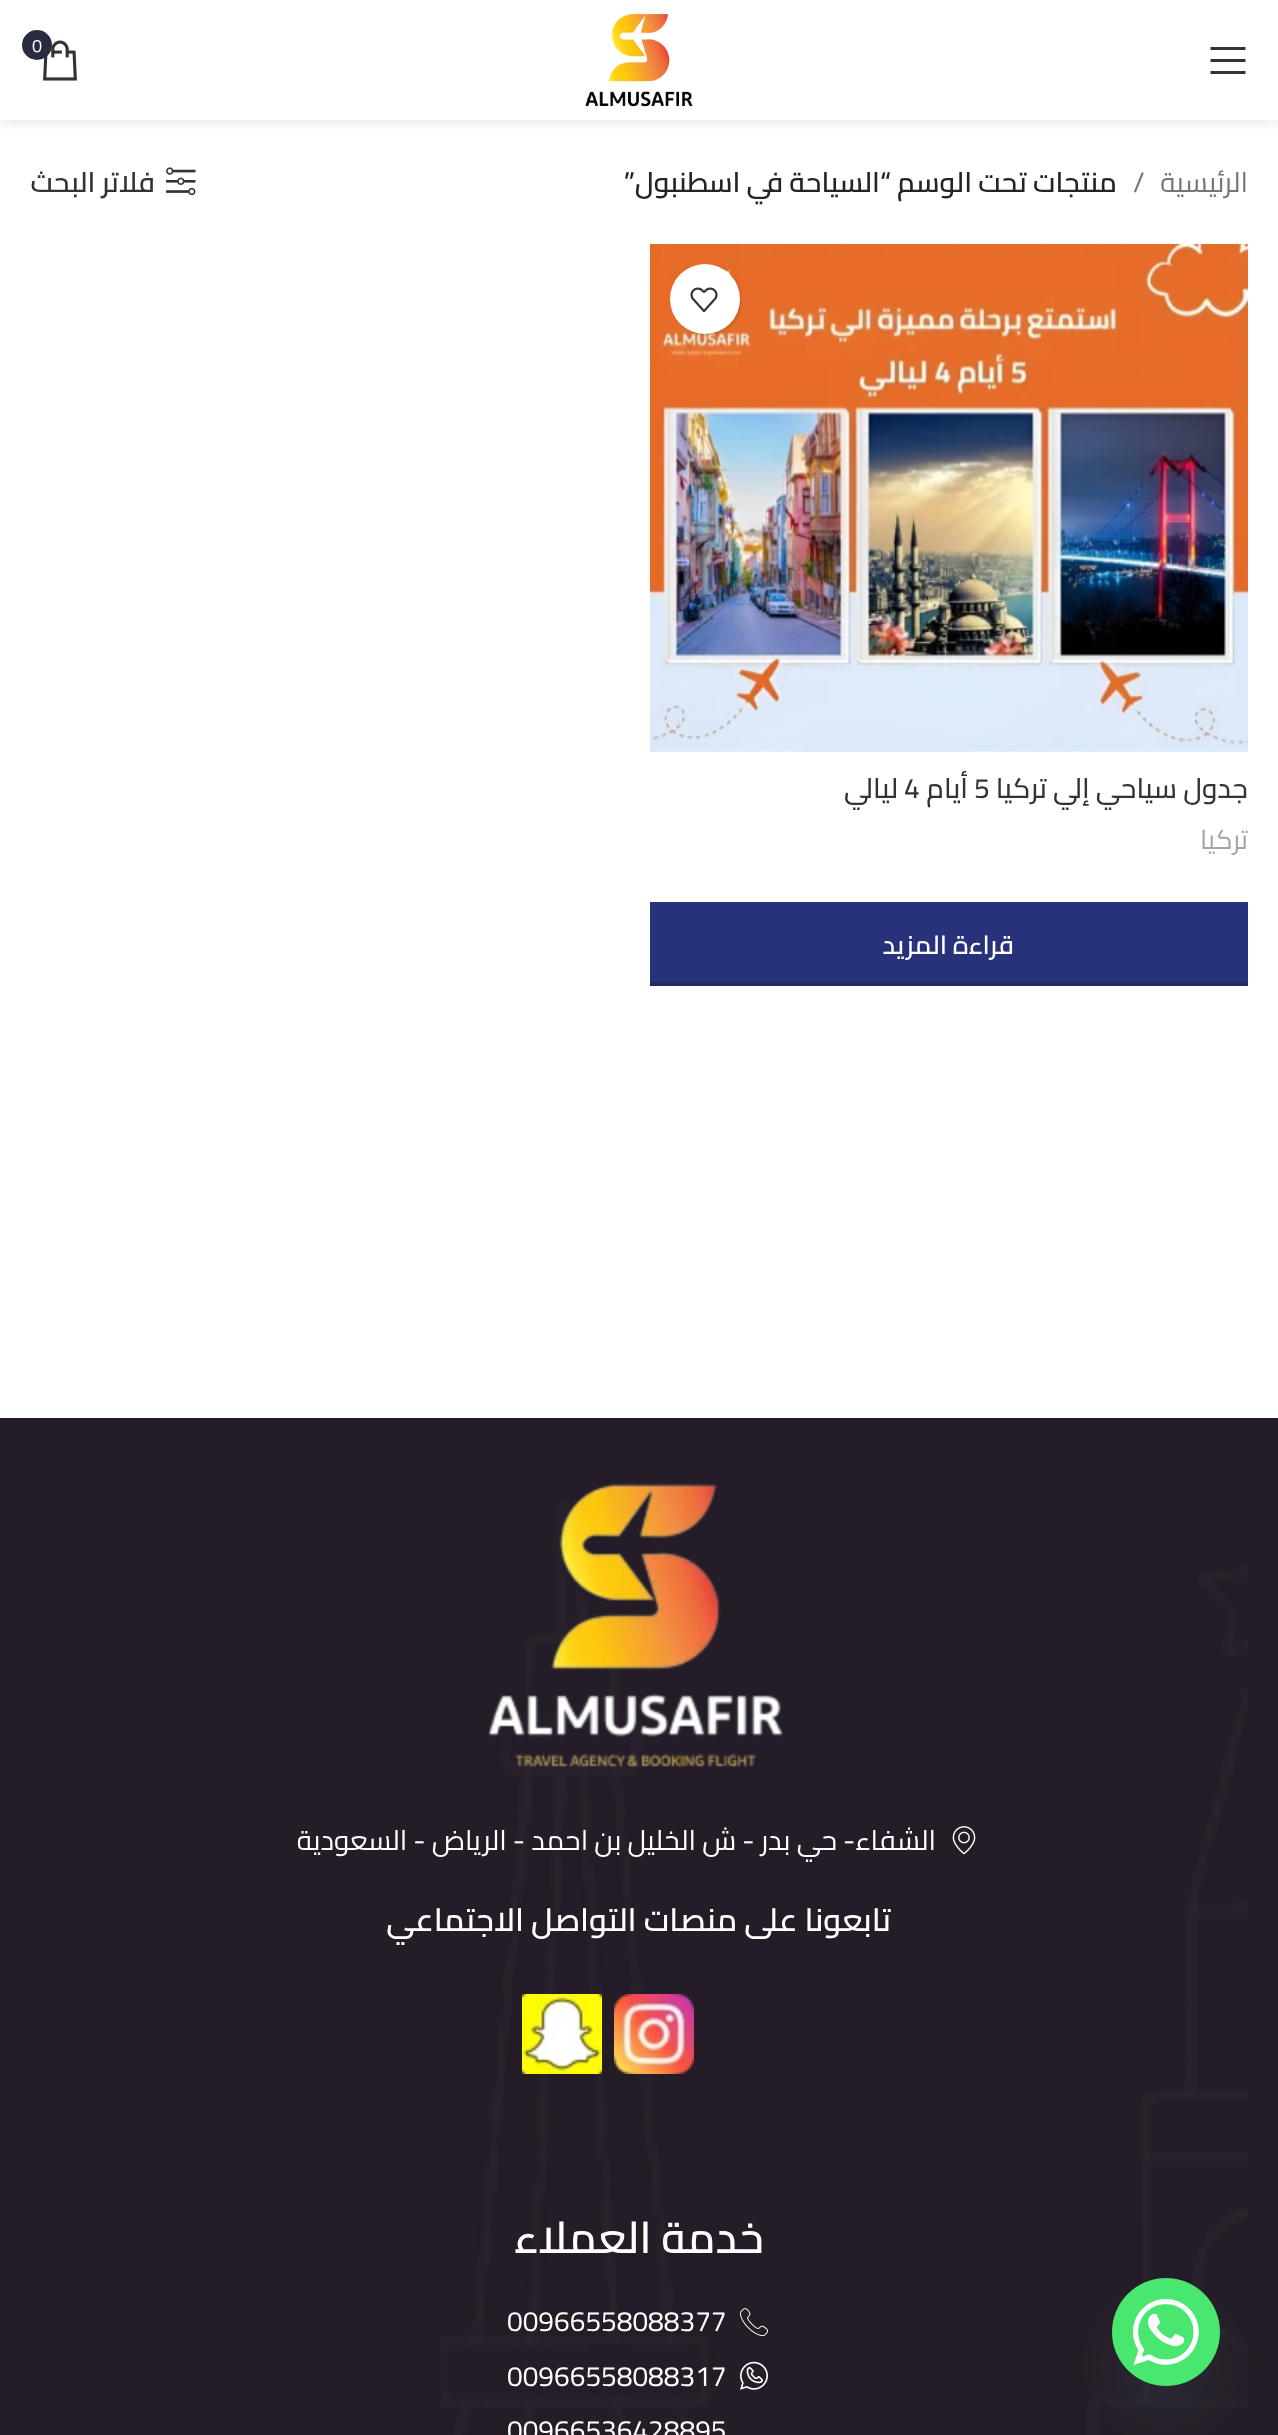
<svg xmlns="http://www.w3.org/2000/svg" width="1278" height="2435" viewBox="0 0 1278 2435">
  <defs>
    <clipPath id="clip1"><rect x="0" y="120" width="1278" height="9"/></clipPath>
    <filter id="blur1" x="-50%" y="-200%" width="200%" height="500%"><feGaussianBlur stdDeviation="8"/></filter>
    <filter id="blur2" x="-50%" y="-200%" width="200%" height="500%"><feGaussianBlur stdDeviation="1"/></filter>
    <clipPath id="clip2"><rect x="650" y="770" width="598" height="40"/></clipPath>
    <filter id="blur3" x="-50%" y="-200%" width="200%" height="500%"><feGaussianBlur stdDeviation="24"/></filter>
  </defs>
  <rect width="100%" height="100%" fill="#ffffff"/>
  <g clip-path="url(#clip1)">
    <rect x="0" y="2" width="1278" height="120" fill="#000000" fill-opacity="0.1" filter="url(#blur1)"/>
  </g>
  <path d="M1210.5 50H1245.5V47H1210.5ZM1210.5 62H1245.5V59H1210.5ZM1210.5 74H1245.5V71H1210.5Z" fill="#333333"/>
  <image x="585" y="14" width="108" height="93" href="img1.png"/>
  <image x="43" y="40" width="34" height="41" href="img2.png"/>
  <circle cx="37" cy="45" r="15" fill="#292b41"/>
  <text x="32" y="52" font-family="Cairo" font-size="18" fill="#ffffff">0</text>
  <text x="1248" y="192" font-family="Cairo" font-size="28" direction="rtl" fill="#767676">الرئيسية</text>
  <text x="1133" y="192" font-family="Cairo" font-size="28" fill="#767676">/</text>
  <text x="1117" y="192" font-family="Cairo" font-size="28" font-weight="600" direction="rtl" fill="#242424">منتجات تحت الوسم “السياحة في اسطنبول”</text>
  <image x="166" y="167" width="30" height="29" href="img3.png"/>
  <text x="155" y="192" font-family="Cairo" font-size="28" font-weight="600" direction="rtl" fill="#333333">فلاتر البحث</text>
  <image x="650" y="244" width="598" height="508" href="img4.png"/>
  <rect x="672" y="266" width="70" height="70" rx="35" fill="#000000" fill-opacity="0.1" filter="url(#blur2)"/>
  <circle cx="705" cy="299" r="35" fill="#ffffff"/>
  <image x="690" y="287" width="28" height="25" href="img5.png"/>
  <g clip-path="url(#clip2)">
    <text x="1248" y="798" font-family="Cairo" font-size="28" font-weight="500" direction="rtl" fill="#333333">جدول سياحي إلي تركيا</text>
  </g>
  <text x="974" y="798" font-family="Cairo" font-size="28" font-weight="500" fill="#333333">5</text>
  <text x="968" y="798" font-family="Cairo" font-size="28" font-weight="500" direction="rtl" fill="#333333">أيام</text>
  <text x="904" y="798" font-family="Cairo" font-size="28" font-weight="500" fill="#333333">4</text>
  <g clip-path="url(#clip2)">
    <text x="898" y="798" font-family="Cairo" font-size="28" font-weight="500" direction="rtl" fill="#333333">ليالي</text>
  </g>
  <text x="1248" y="849" font-family="Cairo" font-size="27" direction="rtl" fill="#a5a5a5">تركيا</text>
  <rect x="650" y="902" width="598" height="80" fill="#28327a"/>
  <rect x="650" y="982" width="598" height="4" fill="#222b68"/>
  <text x="1014" y="954" font-family="Cairo" font-size="26" font-weight="600" direction="rtl" fill="#ffffff">قراءة المزيد</text>
  <rect x="0" y="1418" width="1278" height="1017" fill="#241c26"/>
  <image x="441" y="1501" width="807" height="934" href="img6.png"/>
  <image x="488" y="1483" width="295" height="285" href="img7.png"/>
  <image x="952" y="1826" width="24" height="29" href="img8.png"/>
  <text x="936" y="1850" font-family="Cairo" font-size="28" direction="rtl" fill="#ffffff">الشفاء- حي بدر - ش الخليل بن احمد - الرياض - السعودية</text>
  <text x="891" y="1931" font-family="Cairo" font-size="32" font-weight="600" direction="rtl" fill="#ffffff">تابعونا على منصات التواصل الاجتماعي</text>
  <image x="614" y="1994" width="80" height="80" href="img9.png"/>
  <image x="522" y="1994" width="80" height="80" href="img10.png"/>
  <text x="764" y="2253" font-family="Cairo" font-size="44" font-weight="600" direction="rtl" fill="#ffffff">خدمة العملاء</text>
  <image x="740" y="2308" width="28" height="29" href="img11.png"/>
  <text x="507" y="2331" font-family="Cairo" font-size="28" fill="#ffffff">00966558088377</text>
  <image x="740" y="2361" width="28" height="29" href="img12.png"/>
  <text x="507" y="2386" font-family="Cairo" font-size="28" fill="#ffffff">00966558088317</text>
  <text x="507" y="2440" font-family="Cairo" font-size="28" fill="#ffffff">00966536428895</text>
  <rect x="1112" y="2310" width="108" height="108" rx="54" fill="#49687e" fill-opacity="0.16" filter="url(#blur3)"/>
  <image x="1112" y="2278" width="108" height="108" href="img13.png"/>
</svg>
